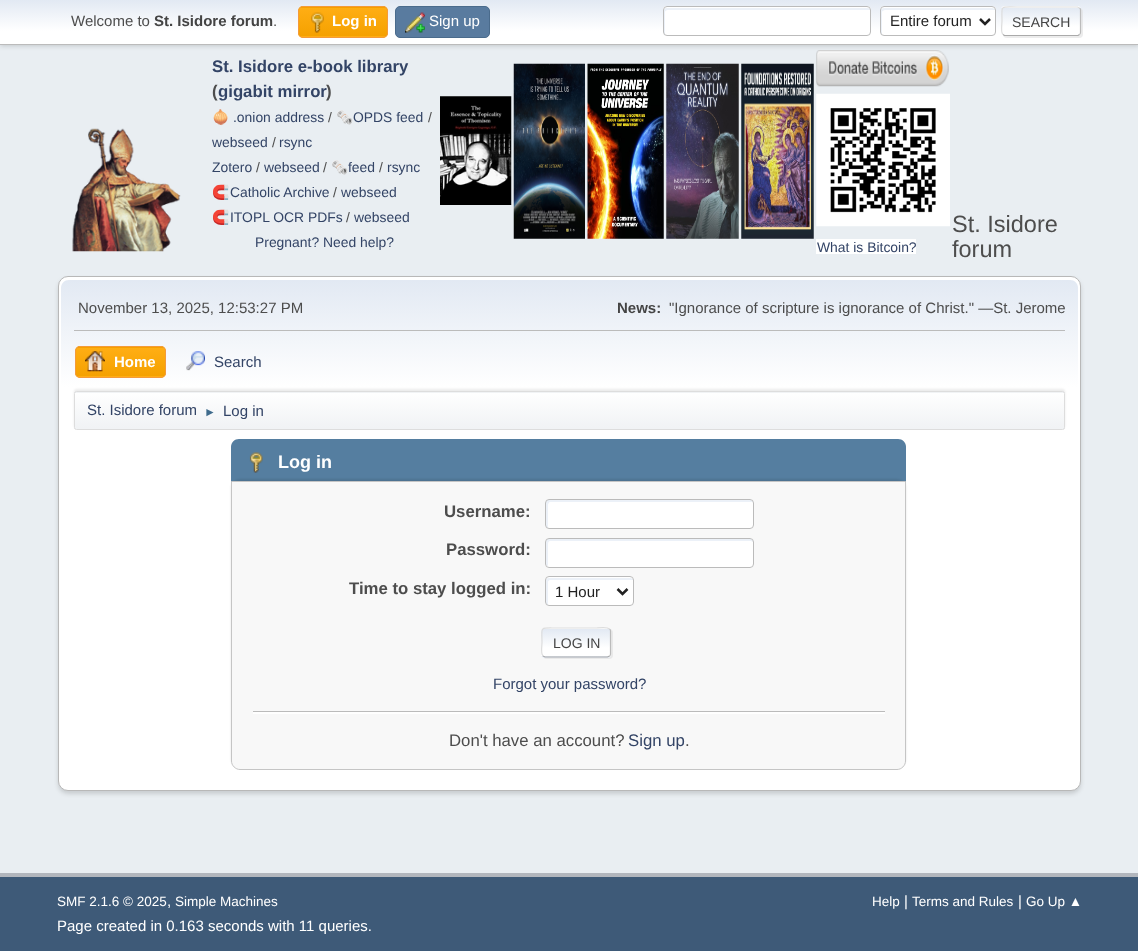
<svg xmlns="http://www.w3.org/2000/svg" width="1138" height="951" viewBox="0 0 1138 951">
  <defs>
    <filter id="blur1" x="-50%" y="-200%" width="200%" height="500%"><feGaussianBlur stdDeviation="2.5"/></filter>
    <linearGradient id="g1" gradientUnits="userSpaceOnUse" x1="569" y1="0" x2="569" y2="44"><stop offset="0" stop-color="#e2e9f3"/><stop offset="0.7" stop-color="#ffffff"/></linearGradient>
    <clipPath id="clip1"><rect x="298" y="6" width="90" height="32" rx="5"/></clipPath>
    <linearGradient id="g2" gradientUnits="userSpaceOnUse" x1="343" y1="-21" x2="343" y2="7.5"><stop offset="0" stop-color="#ffae14"/><stop offset="1" stop-color="#f5a100"/></linearGradient>
    <linearGradient id="g3" gradientUnits="userSpaceOnUse" x1="343" y1="7.5" x2="343" y2="36"><stop offset="0" stop-color="#ffae14"/><stop offset="1" stop-color="#f5a100"/></linearGradient>
    <linearGradient id="g4" gradientUnits="userSpaceOnUse" x1="343" y1="36" x2="343" y2="65"><stop offset="0" stop-color="#ffae14"/><stop offset="1" stop-color="#f5a100"/></linearGradient>
    <filter id="blur2" x="-50%" y="-200%" width="200%" height="500%"><feGaussianBlur stdDeviation="0.5"/></filter>
    <clipPath id="clip2"><rect x="1001" y="6" width="80" height="30" rx="4"/></clipPath>
    <linearGradient id="g5" gradientUnits="userSpaceOnUse" x1="1041" y1="-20" x2="1041" y2="7.5"><stop offset="0" stop-color="#e2e9f3"/><stop offset="0.7" stop-color="#ffffff"/></linearGradient>
    <linearGradient id="g6" gradientUnits="userSpaceOnUse" x1="1041" y1="7.5" x2="1041" y2="35"><stop offset="0" stop-color="#e2e9f3"/><stop offset="0.7" stop-color="#ffffff"/></linearGradient>
    <filter id="blur3" x="-50%" y="-200%" width="200%" height="500%"><feGaussianBlur stdDeviation="2"/></filter>
    <linearGradient id="g7" gradientUnits="userSpaceOnUse" x1="569" y1="280" x2="569" y2="433"><stop offset="0" stop-color="#e2e9f3"/><stop offset="0.7" stop-color="#ffffff"/></linearGradient>
    <clipPath id="clip3"><rect x="75" y="346" width="91" height="32" rx="5"/></clipPath>
    <linearGradient id="g8" gradientUnits="userSpaceOnUse" x1="121" y1="319" x2="121" y2="348"><stop offset="0" stop-color="#ffae14"/><stop offset="1" stop-color="#f5a100"/></linearGradient>
    <linearGradient id="g9" gradientUnits="userSpaceOnUse" x1="121" y1="348" x2="121" y2="376"><stop offset="0" stop-color="#ffae14"/><stop offset="1" stop-color="#f5a100"/></linearGradient>
    <linearGradient id="g10" gradientUnits="userSpaceOnUse" x1="121" y1="376" x2="121" y2="405"><stop offset="0" stop-color="#ffae14"/><stop offset="1" stop-color="#f5a100"/></linearGradient>
    <filter id="blur4" x="-50%" y="-200%" width="200%" height="500%"><feGaussianBlur stdDeviation="1"/></filter>
    <clipPath id="clip4"><rect x="74" y="391" width="991" height="39" rx="2.5"/></clipPath>
    <linearGradient id="g11" gradientUnits="userSpaceOnUse" x1="569" y1="356" x2="569" y2="393"><stop offset="0" stop-color="#ffffff"/><stop offset="0.95" stop-color="#f1f3f5"/></linearGradient>
    <linearGradient id="g12" gradientUnits="userSpaceOnUse" x1="569" y1="392" x2="569" y2="429"><stop offset="0" stop-color="#ffffff"/><stop offset="0.95" stop-color="#f1f3f5"/></linearGradient>
    <clipPath id="clip5"><rect x="541" y="628" width="70" height="30" rx="4"/></clipPath>
    <linearGradient id="g13" gradientUnits="userSpaceOnUse" x1="576" y1="629" x2="576" y2="656"><stop offset="0" stop-color="#e2e9f3"/><stop offset="0.7" stop-color="#ffffff"/></linearGradient>
    <linearGradient id="g14" gradientUnits="userSpaceOnUse" x1="576" y1="656" x2="576" y2="684"><stop offset="0" stop-color="#e2e9f3"/><stop offset="0.7" stop-color="#ffffff"/></linearGradient>
  </defs>
  <rect width="100%" height="100%" fill="#e9eef2"/>
  <rect x="0" y="1" width="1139" height="45" fill="#000000" fill-opacity="0.16" filter="url(#blur1)"/>
  <rect x="0" y="0" width="1138" height="44" fill="url(#g1)"/>
  <rect x="0" y="44" width="1138" height="1" fill="#bbbbbb"/>
  <text x="71" y="26" font-family="Liberation Sans" font-size="15" fill="#4d4d4d">Welcome to</text>
  <text x="154" y="26" font-family="Liberation Sans" font-size="15" font-weight="bold" fill="#444444">St. Isidore forum</text>
  <text x="273" y="26" font-family="Liberation Sans" font-size="15" fill="#4d4d4d">.</text>
  <g clip-path="url(#clip1)">
    <rect x="298" y="6" width="90" height="2" fill="url(#g2)"/>
    <rect x="298" y="8" width="90" height="28" fill="url(#g3)"/>
    <rect x="298" y="36" width="90" height="2" fill="url(#g4)"/>
  </g>
  <rect x="298.5" y="6.5" width="89" height="31" rx="4.5" fill="none" stroke="#f49a3a"/>
  <image x="311" y="12" width="13" height="21" href="img1.png"/>
  <text x="332" y="26" font-family="Liberation Sans" font-size="15" font-weight="bold" fill="#ffffff">Log in</text>
  <rect x="395.5" y="6.5" width="94" height="31" rx="4.5" fill="#597b9f" stroke="#4a6b8c"/>
  <image x="405" y="12" width="20" height="21" href="img2.png"/>
  <text x="429" y="26" font-family="Liberation Sans" font-size="15" fill="#ffffff">Sign up</text>
  <rect x="663" y="6" width="208" height="30" rx="4" fill="#ffffff"/>
  <path d="M668 10H870C870 9 869 8 868 8H666C665 8 664 9 664 10V32C664 33 664 34 665 35V12C665 11 666 10 668 10Z" fill="#ecf1f8"/>
  <rect x="663.5" y="6.5" width="207" height="29" rx="3.5" fill="none" stroke="#bbbbbb"/>
  <rect x="880" y="6" width="116" height="30" rx="4" fill="#ffffff"/>
  <path d="M885 10H995C995 9 994 8 992 8H884C882 8 881 9 881 10V32C881 33 881 34 882 35V12C882 11 884 10 885 10Z" fill="#ecf1f8"/>
  <rect x="880.5" y="6.5" width="115" height="29" rx="3.5" fill="none" stroke="#bbbbbb"/>
  <path d="M980 19L985 24L990 19" fill="none" stroke="#222222" stroke-width="2.5"/>
  <text x="890" y="26" font-family="Liberation Sans" font-size="15" fill="#222222">Entire forum</text>
  <rect x="1003" y="8" width="80" height="30" rx="4" fill="#dddddd" fill-opacity="0.57" filter="url(#blur2)"/>
  <g clip-path="url(#clip2)">
    <rect x="1001" y="6" width="80" height="2" fill="url(#g5)"/>
    <rect x="1001" y="8" width="80" height="27" fill="url(#g6)"/>
  </g>
  <path d="M1079.5 8C1080.5 8.5 1080.5 9 1080.5 10V32.5C1080.5 33.5 1080.5 34 1079.5 34.5" fill="none" stroke="#bbbbbb" stroke-width="1.2"/>
  <path d="M1079.5 34.5L1078 35.5H1004.5L1003 34.5" fill="none" stroke="#aaaaaa" stroke-width="1.2"/>
  <path d="M1003 34.5C1000.5 32.5 1002 24 1002 21C1002 4.5 999.5 7 1017 7H1077.5L1079.5 8" fill="none" stroke="#dddddd" stroke-width="1.2"/>
  <text x="1012" y="27" font-family="Liberation Sans" font-size="14" fill="#444444">SEARCH</text>
  <image x="72" y="128" width="109" height="124" href="img3.png"/>
  <text x="212" y="72" font-family="Liberation Sans" font-size="16.75" font-weight="bold" fill="#334466">St. Isidore e-book library</text>
  <text x="212" y="97" font-family="Liberation Sans" font-size="16.75" font-weight="bold" fill="#4d4d4d">(</text>
  <text x="218" y="97" font-family="Liberation Sans" font-size="16.75" font-weight="bold" fill="#334466">gigabit mirror</text>
  <text x="326" y="97" font-family="Liberation Sans" font-size="16.75" font-weight="bold" fill="#4d4d4d">)</text>
  <text x="212" y="122" font-family="Noto Color Emoji" font-size="13.9" fill="#334466">🧅</text>
  <text x="233" y="122" font-family="Liberation Sans" font-size="13.9" fill="#334466">.onion address</text>
  <text x="328" y="122" font-family="Liberation Sans" font-size="13.9" fill="#4d4d4d">/</text>
  <text x="336" y="122" font-family="Noto Color Emoji" font-size="13.9" fill="#334466">🗞️</text>
  <text x="353" y="122" font-family="Liberation Sans" font-size="13.9" fill="#334466">OPDS feed</text>
  <text x="428" y="122" font-family="Liberation Sans" font-size="13.9" fill="#4d4d4d">/</text>
  <text x="212" y="147" font-family="Liberation Sans" font-size="13.9" fill="#334466">webseed</text>
  <text x="272" y="147" font-family="Liberation Sans" font-size="13.9" fill="#4d4d4d">/</text>
  <text x="279" y="147" font-family="Liberation Sans" font-size="13.9" fill="#334466">rsync</text>
  <text x="212" y="172" font-family="Liberation Sans" font-size="13.9" fill="#334466">Zotero</text>
  <text x="256" y="172" font-family="Liberation Sans" font-size="13.9" fill="#4d4d4d">/</text>
  <text x="264" y="172" font-family="Liberation Sans" font-size="13.9" fill="#334466">webseed</text>
  <text x="323" y="172" font-family="Liberation Sans" font-size="13.9" fill="#4d4d4d">/</text>
  <text x="331" y="172" font-family="Noto Color Emoji" font-size="13.9" fill="#334466">🗞️</text>
  <text x="348" y="172" font-family="Liberation Sans" font-size="13.9" fill="#334466">feed</text>
  <text x="379" y="172" font-family="Liberation Sans" font-size="13.9" fill="#4d4d4d">/</text>
  <text x="387" y="172" font-family="Liberation Sans" font-size="13.9" fill="#334466">rsync</text>
  <text x="212" y="197" font-family="Noto Color Emoji" font-size="13.9" fill="#334466">🧲</text>
  <text x="230" y="197" font-family="Liberation Sans" font-size="13.9" fill="#334466">Catholic Archive</text>
  <text x="333" y="197" font-family="Liberation Sans" font-size="13.9" fill="#4d4d4d">/</text>
  <text x="341" y="197" font-family="Liberation Sans" font-size="13.9" fill="#334466">webseed</text>
  <text x="212" y="222" font-family="Noto Color Emoji" font-size="13.9" fill="#334466">🧲</text>
  <text x="230" y="222" font-family="Liberation Sans" font-size="13.9" fill="#334466">ITOPL OCR PDFs</text>
  <text x="346" y="222" font-family="Liberation Sans" font-size="13.9" fill="#4d4d4d">/</text>
  <text x="354" y="222" font-family="Liberation Sans" font-size="13.9" fill="#334466">webseed</text>
  <text x="255" y="247" font-family="Liberation Sans" font-size="13.9" fill="#334466">Pregnant? Need help?</text>
  <image x="440" y="96" width="72" height="109" href="img4.png"/>
  <image x="513" y="63" width="72" height="176" href="img5.png"/>
  <image x="587" y="63" width="77" height="176" href="img6.png"/>
  <image x="666" y="63" width="73" height="176" href="img7.png"/>
  <image x="741" y="63" width="73" height="176" href="img8.png"/>
  <image x="816" y="50" width="133" height="37" href="img9.png"/>
  <image x="816" y="93" width="134" height="134" href="img10.png"/>
  <rect x="816" y="239" width="100" height="15" fill="#ffffff"/>
  <text x="817" y="252" font-family="Liberation Sans" font-size="13.9" fill="#334466">What is Bitcoin?</text>
  <text x="952" y="232" font-family="Liberation Sans" font-size="23.5" fill="#4d4d4d">St. Isidore</text>
  <text x="952" y="257" font-family="Liberation Sans" font-size="23.5" fill="#4d4d4d">forum</text>
  <rect x="58" y="279" width="1023" height="515" rx="10" fill="#000000" fill-opacity="0.14" filter="url(#blur3)"/>
  <rect x="58.5" y="276.5" width="1022" height="514" rx="9.5" fill="#ffffff" stroke="#b8b8b8"/>
  <path d="M69 280H1070C1074.5 280 1078 283.5 1078 288V433H61V288C61 283.5 64.5 280 69 280Z" fill="url(#g7)"/>
  <rect x="74" y="330" width="991" height="1" fill="#bbbbbb"/>
  <text x="78" y="313" font-family="Liberation Sans" font-size="15" fill="#4d4d4d">November 13, 2025, 12:53:27 PM</text>
  <text x="617" y="313" font-family="Liberation Sans" font-size="15" font-weight="bold" fill="#444444">News:</text>
  <text x="669" y="313" font-family="Liberation Sans" font-size="15" fill="#4d4d4d">"Ignorance of scripture is ignorance of Christ." —St. Jerome</text>
  <g clip-path="url(#clip3)">
    <rect x="75" y="346" width="91" height="2" fill="url(#g8)"/>
    <rect x="75" y="348" width="91" height="28" fill="url(#g9)"/>
    <rect x="75" y="376" width="91" height="2" fill="url(#g10)"/>
  </g>
  <rect x="75.5" y="346.5" width="90" height="31" rx="4.5" fill="none" stroke="#f49a3a"/>
  <image x="85" y="351" width="20" height="21" href="img11.png"/>
  <text x="114" y="367" font-family="Liberation Sans" font-size="15" font-weight="bold" fill="#ffffff">Home</text>
  <image x="186" y="351" width="19" height="20" href="img12.png"/>
  <text x="214" y="367" font-family="Liberation Sans" font-size="15" fill="#334466">Search</text>
  <rect x="74" y="389" width="991" height="39" rx="2.5" fill="#000000" fill-opacity="0.08" filter="url(#blur4)"/>
  <g clip-path="url(#clip4)">
    <rect x="74" y="391" width="991" height="2" fill="url(#g11)"/>
  </g>
  <rect x="74" y="393" width="991" height="36" fill="url(#g12)"/>
  <rect x="74.5" y="391.5" width="990" height="38" rx="2" fill="none" stroke="#dddddd"/>
  <text x="87" y="415" font-family="Liberation Sans" font-size="15" fill="#334466">St. Isidore forum</text>
  <text x="204" y="416" font-family="Liberation Sans" font-size="12" fill="#3f6b8c">►</text>
  <text x="223" y="416" font-family="Liberation Sans" font-size="15" fill="#334466">Log in</text>
  <path d="M239 439H898C902.5 439 906 442.5 906 447V483H231V447C231 442.5 234.5 439 239 439Z" fill="#557ea0"/>
  <image x="249" y="452" width="14" height="21" href="img13.png"/>
  <text x="278" y="468" font-family="Liberation Sans" font-size="18" font-weight="bold" fill="#ffffff">Log in</text>
  <rect x="231" y="479" width="675" height="289" rx="9" fill="#000000" fill-opacity="0.1" filter="url(#blur4)"/>
  <path d="M231.5 481.5H905.5V761C905.5 765.5 901.5 769.5 897 769.5H240C235.5 769.5 231.5 765.5 231.5 761Z" fill="#f8f8f8" stroke="#c5c5c5"/>
  <text x="444" y="517" font-family="Liberation Sans" font-size="16.75" font-weight="bold" fill="#4d4d4d">Username:</text>
  <rect x="545" y="499" width="209" height="30" rx="4" fill="#ffffff"/>
  <path d="M550 502H751H753C753 501 752 500 750 500H548C547 500 546 501 546 502V526C546 527 547 528 548 528V505C548 504 549 502 550 502Z" fill="#ecf1f8"/>
  <rect x="545.5" y="499.5" width="208" height="29" rx="3.5" fill="none" stroke="#bbbbbb"/>
  <text x="446" y="555" font-family="Liberation Sans" font-size="16.75" font-weight="bold" fill="#4d4d4d">Password:</text>
  <rect x="545" y="538" width="209" height="30" rx="4" fill="#ffffff"/>
  <path d="M550 541H751L753 542C753 540 752 539 750 539H548C547 539 546 540 546 542V564C546 565 547 566 548 566V544C548 542 549 541 550 541Z" fill="#ecf1f8"/>
  <rect x="545.5" y="538.5" width="208" height="29" rx="3.5" fill="none" stroke="#bbbbbb"/>
  <text x="349" y="594" font-family="Liberation Sans" font-size="16.75" font-weight="bold" fill="#4d4d4d">Time to stay logged in:</text>
  <rect x="545" y="576" width="89" height="30" rx="4" fill="#ffffff"/>
  <path d="M550 580H631H633C633 579 632 578 630 578H548C547 578 546 579 546 580V602C546 604 547 605 548 605V582C548 581 549 580 550 580Z" fill="#ecf1f8"/>
  <rect x="545.5" y="576.5" width="88" height="29" rx="3.5" fill="none" stroke="#bbbbbb"/>
  <path d="M617.5 589L622.5 594L627.5 589" fill="none" stroke="#222222" stroke-width="2.5"/>
  <text x="555" y="597" font-family="Liberation Sans" font-size="15" fill="#222222">1 Hour</text>
  <rect x="543" y="629" width="70" height="30" rx="4" fill="#dddddd" fill-opacity="0.57" filter="url(#blur2)"/>
  <rect x="541" y="628" width="70" height="30" rx="4" fill="#ffffff"/>
  <g clip-path="url(#clip5)">
    <rect x="541" y="629" width="70" height="27" fill="url(#g13)"/>
    <rect x="541" y="656" width="70" height="2" fill="url(#g14)"/>
  </g>
  <path d="M609.5 629C610.5 629.5 610.5 630.5 610.5 631V654C610.5 654.5 610.5 655.5 609.5 656" fill="none" stroke="#bbbbbb" stroke-width="1.2"/>
  <path d="M609.5 656L607.5 657H545L543 656" fill="none" stroke="#aaaaaa" stroke-width="1.2"/>
  <path d="M543 656C540.5 654 542 645 542 642.5C542 626.5 539 628 555.5 628H597C597.5 628 607 626.5 609.5 629" fill="none" stroke="#dddddd" stroke-width="1.2"/>
  <text x="553" y="648" font-family="Liberation Sans" font-size="14" fill="#444444">LOG IN</text>
  <text x="493" y="689" font-family="Liberation Sans" font-size="15" fill="#334466">Forgot your password?</text>
  <rect x="253" y="712" width="632" height="2" fill="#ffffff"/>
  <rect x="253" y="711" width="632" height="1" fill="#bbbbbb"/>
  <text x="449" y="746" font-family="Liberation Sans" font-size="16.75" fill="#4d4d4d">Don't have an account?</text>
  <text x="628" y="746" font-family="Liberation Sans" font-size="16.75" fill="#334466">Sign up</text>
  <text x="685" y="746" font-family="Liberation Sans" font-size="16.75" fill="#4d4d4d">.</text>
  <rect x="0" y="877" width="1138" height="74" fill="#3e5a78"/>
  <rect x="0" y="873" width="1138" height="4" fill="#b2b6bd"/>
  <text x="57" y="906" font-family="Liberation Sans" font-size="13.5" fill="#ffffff">SMF 2.1.6 © 2025</text>
  <text x="167" y="906" font-family="Liberation Sans" font-size="15" fill="#ffffff">,</text>
  <text x="175" y="906" font-family="Liberation Sans" font-size="13.5" fill="#ffffff">Simple Machines</text>
  <text x="872" y="906" font-family="Liberation Sans" font-size="13.5" fill="#ffffff">Help</text>
  <text x="904" y="906" font-family="Liberation Sans" font-size="15" fill="#ffffff">|</text>
  <text x="912" y="906" font-family="Liberation Sans" font-size="13.5" fill="#ffffff">Terms and Rules</text>
  <text x="1018" y="906" font-family="Liberation Sans" font-size="15" fill="#ffffff">|</text>
  <text x="1026" y="906" font-family="Liberation Sans" font-size="13.5" fill="#ffffff">Go Up ▲</text>
  <text x="57" y="931" font-family="Liberation Sans" font-size="15" fill="#ffffff">Page created in 0.163 seconds with 11 queries.</text>
</svg>
